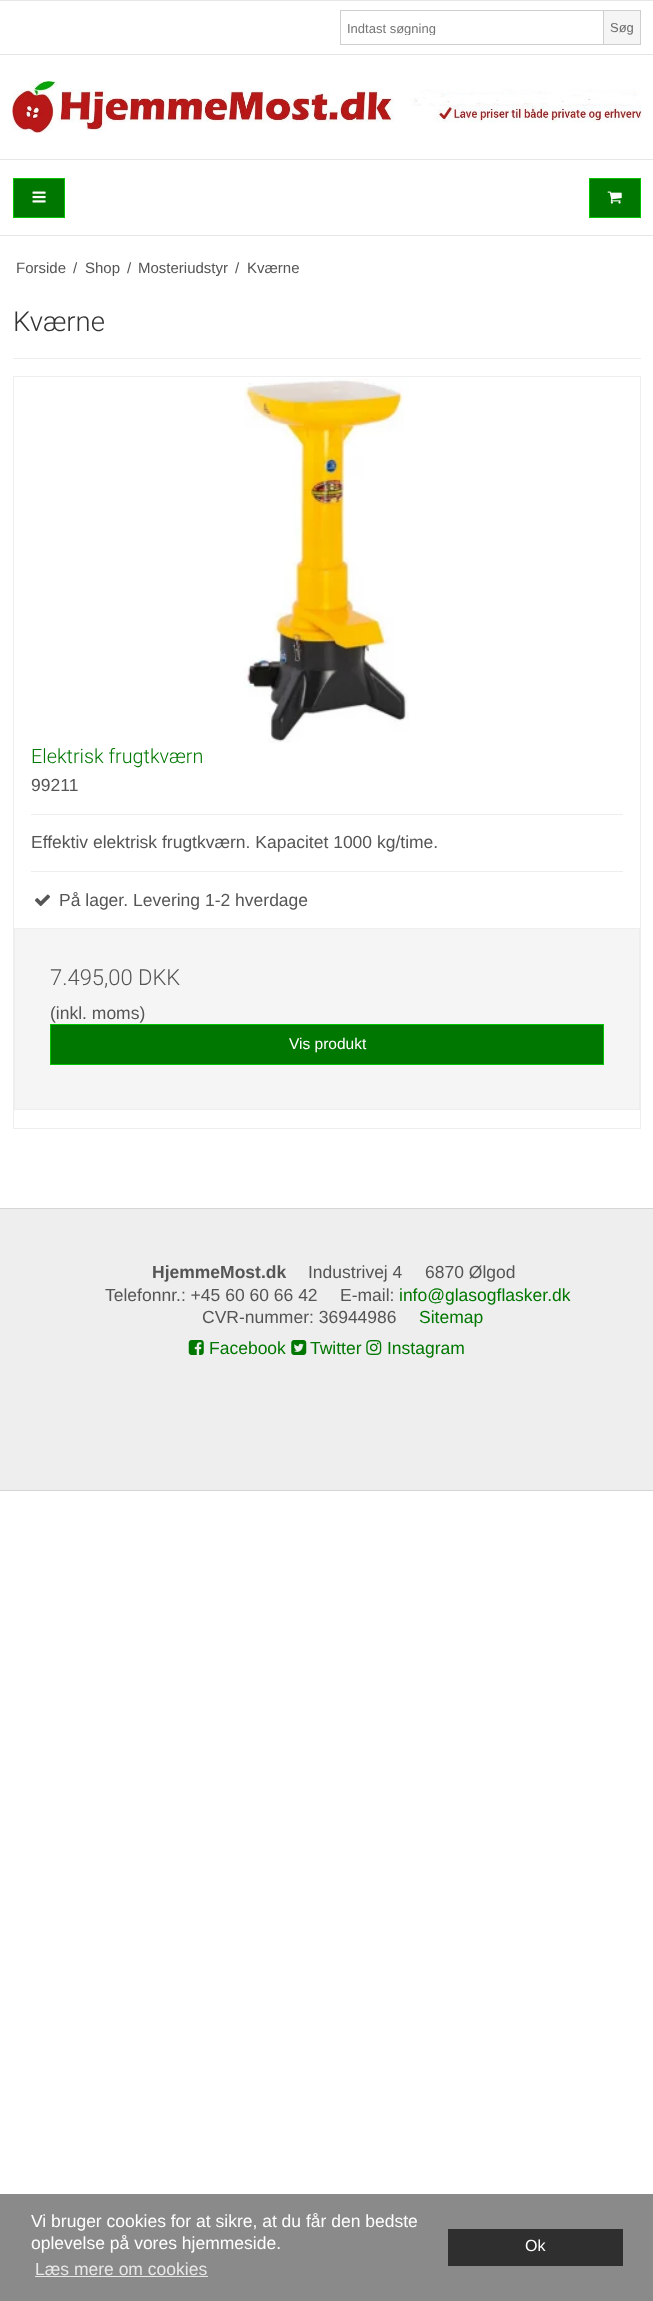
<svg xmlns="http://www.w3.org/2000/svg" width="653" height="2301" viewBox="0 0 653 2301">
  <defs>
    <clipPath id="clip1"><rect x="348" y="20" width="248" height="15"/></clipPath>
  </defs>
  <rect width="100%" height="100%" fill="#ffffff"/>
  <rect x="0" y="0" width="653" height="1" fill="#e6e6e6"/>
  <rect x="0" y="54" width="653" height="1" fill="#e6e6e6"/>
  <rect x="340" y="10" width="263" height="1" fill="#cfcfcf"/>
  <rect x="340" y="44" width="263" height="1" fill="#cfcfcf"/>
  <rect x="340" y="10" width="1" height="35" fill="#cfcfcf"/>
  <g clip-path="url(#clip1)">
    <text x="347" y="33" font-family="Liberation Sans" font-size="13" fill="#757575">Indtast søgning</text>
  </g>
  <rect x="603.5" y="10.5" width="37" height="34" fill="#f5f5f5" stroke="#cfcfcf"/>
  <text x="610" y="32" font-family="Liberation Sans" font-size="13" fill="#6c6c6c">Søg</text>
  <image x="12" y="81" width="630" height="52" href="img1.png"/>
  <rect x="0" y="159" width="653" height="1" fill="#e6e6e6"/>
  <rect x="0" y="235" width="653" height="1" fill="#e6e6e6"/>
  <rect x="13.5" y="178.5" width="51" height="39" fill="#007700" stroke="#00c400"/>
  <image x="32" y="191" width="14" height="12" href="img2.png"/>
  <rect x="589.5" y="178.5" width="51" height="39" fill="#007700" stroke="#00c400"/>
  <image x="607" y="191" width="15" height="13" href="img3.png"/>
  <text x="16" y="273" font-family="Liberation Sans" font-size="15" fill="#555555">Forside</text>
  <text x="73" y="273" font-family="Liberation Sans" font-size="15" fill="#555555">/</text>
  <text x="85" y="273" font-family="Liberation Sans" font-size="15" fill="#555555">Shop</text>
  <text x="127" y="273" font-family="Liberation Sans" font-size="15" fill="#555555">/</text>
  <text x="138" y="273" font-family="Liberation Sans" font-size="15" fill="#555555">Mosteriudstyr</text>
  <text x="235" y="273" font-family="Liberation Sans" font-size="15" fill="#555555">/</text>
  <text x="247" y="273" font-family="Liberation Sans" font-size="15" fill="#555555">Kværne</text>
  <rect x="13" y="358" width="628" height="1" fill="#eeeeee"/>
  <text x="13" y="331" font-family="Roboto" font-size="27.5" font-weight="300" fill="#333333">Kværne</text>
  <rect x="13.5" y="376.5" width="627" height="752" fill="none" stroke="#eeeeee"/>
  <image x="244" y="378" width="165" height="365" href="img4.png"/>
  <text x="31" y="763" font-family="Roboto" font-size="19.75" font-weight="300" fill="#007700">Elektrisk frugtkværn</text>
  <text x="31" y="791" font-family="Liberation Sans" font-size="17.5" fill="#555555">99211</text>
  <rect x="31" y="814" width="592" height="1" fill="#eeeeee"/>
  <text x="31" y="848" font-family="Liberation Sans" font-size="17.5" fill="#555555">Effektiv elektrisk frugtkværn. Kapacitet 1000 kg/time.</text>
  <rect x="31" y="871" width="592" height="1" fill="#eeeeee"/>
  <image x="35" y="894" width="15" height="13" href="img5.png"/>
  <text x="59" y="906" font-family="Liberation Sans" font-size="17.5" fill="#555555">På lager. Levering 1-2 hverdage</text>
  <rect x="14.5" y="928.5" width="625" height="181" fill="#f5f5f5" stroke="#eeeeee"/>
  <text x="50" y="985" font-family="Roboto" font-size="22" font-weight="300" fill="#555555">7.495,00 DKK</text>
  <text x="50" y="1019" font-family="Liberation Sans" font-size="17.5" fill="#555555">(inkl. moms)</text>
  <rect x="50.5" y="1024.5" width="553" height="40" fill="#007700" stroke="#00c400"/>
  <text x="289" y="1049" font-family="Liberation Sans" font-size="15.5" fill="#ffffff">Vis produkt</text>
  <rect x="0" y="1209" width="653" height="281" fill="#eeeeee"/>
  <rect x="0" y="1208" width="653" height="1" fill="#d5d5d5"/>
  <rect x="0" y="1490" width="653" height="1" fill="#d5d5d5"/>
  <text x="152" y="1278" font-family="Liberation Sans" font-size="17.5" font-weight="bold" fill="#555555">HjemmeMost.dk</text>
  <text x="308" y="1278" font-family="Liberation Sans" font-size="17.5" fill="#555555">Industrivej 4</text>
  <text x="425" y="1278" font-family="Liberation Sans" font-size="17.5" fill="#555555">6870 Ølgod</text>
  <text x="105" y="1301" font-family="Liberation Sans" font-size="17.5" fill="#555555">Telefonnr.: +45 60 60 66 42</text>
  <text x="340" y="1301" font-family="Liberation Sans" font-size="17.5" fill="#555555">E-mail:</text>
  <text x="399" y="1301" font-family="Liberation Sans" font-size="17.5" fill="#007700">info@glasogflasker.dk</text>
  <text x="202" y="1323" font-family="Liberation Sans" font-size="17.5" fill="#555555">CVR-nummer: 36944986</text>
  <text x="419" y="1323" font-family="Liberation Sans" font-size="17.5" fill="#007700">Sitemap</text>
  <image x="188" y="1340" width="16" height="15" href="img6.png"/>
  <text x="209" y="1354" font-family="Liberation Sans" font-size="17.5" fill="#007700">Facebook</text>
  <image x="291" y="1340" width="16" height="15" href="img7.png"/>
  <text x="310" y="1354" font-family="Liberation Sans" font-size="17.5" fill="#007700">Twitter</text>
  <image x="366" y="1340" width="16" height="15" href="img8.png"/>
  <text x="387" y="1354" font-family="Liberation Sans" font-size="17.5" fill="#007700">Instagram</text>
  <rect x="0" y="2194" width="653" height="107" fill="#8a8a8a"/>
  <text x="31" y="2227" font-family="Liberation Sans" font-size="17.5" fill="#ffffff">Vi bruger cookies for at sikre, at du får den bedste</text>
  <text x="31" y="2249" font-family="Liberation Sans" font-size="17.5" fill="#ffffff">oplevelse på vores hjemmeside.</text>
  <text x="35" y="2275" font-family="Liberation Sans" font-size="17.5" fill="#e8e8e8">Læs mere om cookies</text>
  <rect x="35" y="2276" width="173" height="1" fill="#e8e8e8"/>
  <rect x="448" y="2229" width="175" height="37" fill="#2f2f2f"/>
  <text x="525" y="2251" font-family="Liberation Sans" font-size="16" fill="#ffffff">Ok</text>
</svg>
